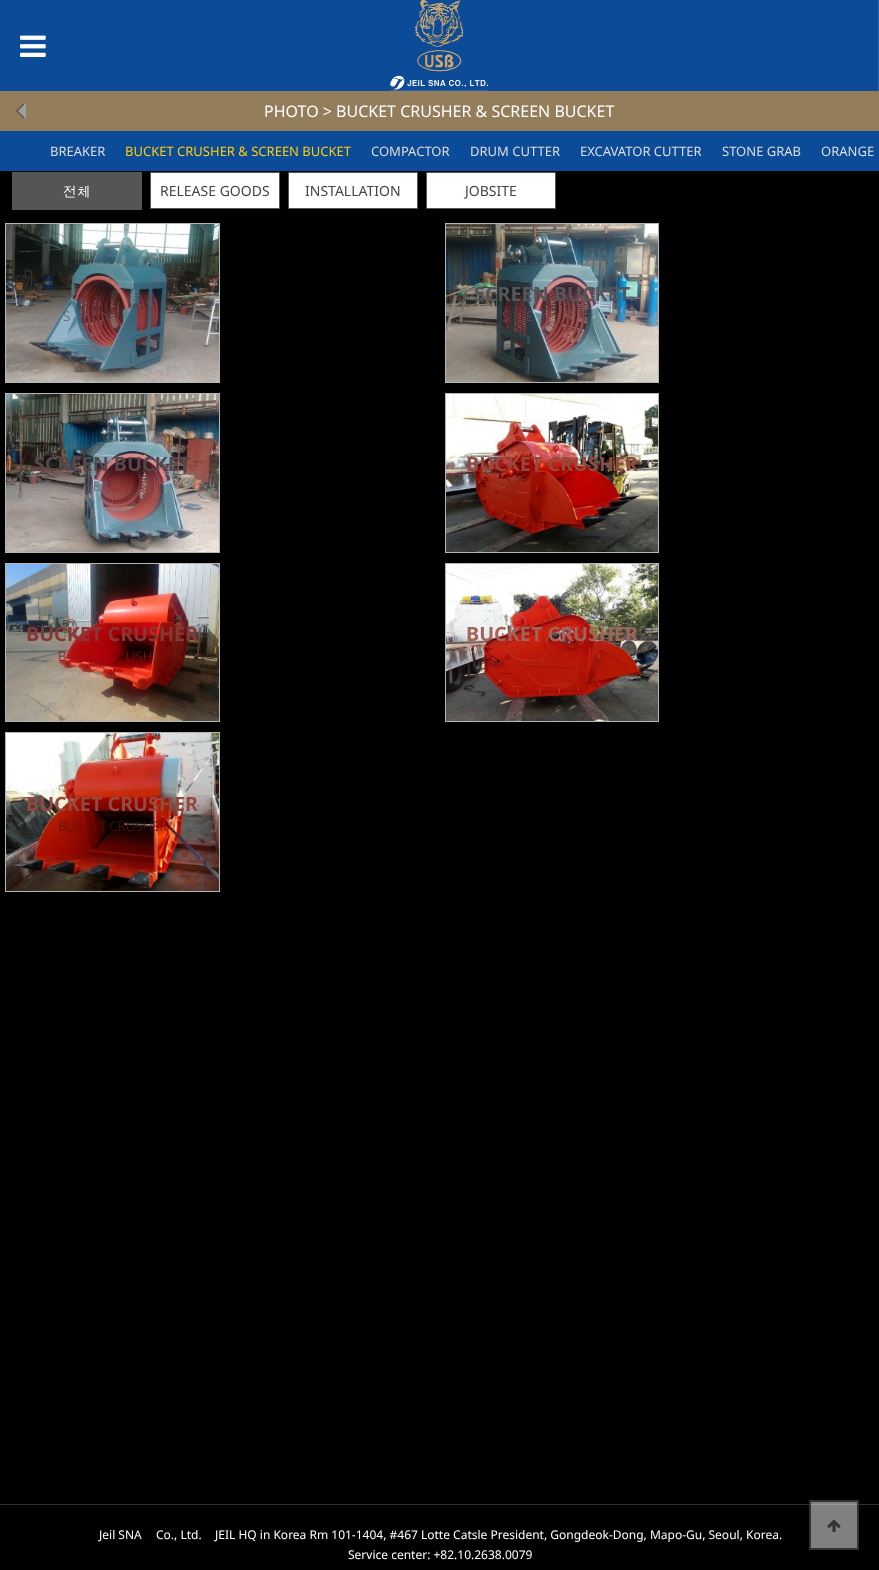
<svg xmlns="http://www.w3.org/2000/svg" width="879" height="1570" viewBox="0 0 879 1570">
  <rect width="100%" height="100%" fill="#000000"/>
  <rect x="0" y="0" width="878" height="91" fill="#0c4b97"/>
  <rect x="878" y="0" width="1" height="91" fill="#3066a7"/>
  <image x="20" y="35" width="26" height="22" href="img1.png"/>
  <rect x="390" y="90" width="98" height="1" fill="#3066a7"/>
  <image x="390" y="0" width="98" height="90" href="img2.png"/>
  <rect x="811" y="1502" width="46" height="46" fill="#808080"/>
  <rect x="0" y="91" width="879" height="40" fill="#947d5a"/>
  <path d="M24 103V119L16 111Z" fill="#5e5342"/>
  <path d="M26 103V119L18 111Z" fill="#9da0a2"/>
  <text x="264" y="117" font-family="Noto Sans" font-size="16" fill="#ffffff">PHOTO &gt; BUCKET CRUSHER &amp; SCREEN BUCKET</text>
  <rect x="0" y="131" width="879" height="40" fill="#0c4b97"/>
  <text x="50" y="156" font-family="Noto Sans" font-size="13" fill="#dddddd">BREAKER</text>
  <text x="125" y="156" font-family="Noto Sans" font-size="13" fill="#ffce0b">BUCKET CRUSHER &amp; SCREEN BUCKET</text>
  <text x="371" y="156" font-family="Noto Sans" font-size="13" fill="#dddddd">COMPACTOR</text>
  <text x="470" y="156" font-family="Noto Sans" font-size="13" fill="#dddddd">DRUM CUTTER</text>
  <text x="580" y="156" font-family="Noto Sans" font-size="13" fill="#dddddd">EXCAVATOR CUTTER</text>
  <text x="722" y="156" font-family="Noto Sans" font-size="13" fill="#dddddd">STONE GRAB</text>
  <text x="821" y="156" font-family="Noto Sans" font-size="13" fill="#dddddd">ORANGE</text>
  <rect x="12" y="172" width="130" height="38" fill="#555555"/>
  <text x="63" y="197" font-family="Dotum" font-size="14" fill="#ffffff">전체</text>
  <rect x="150.5" y="172.5" width="129" height="36" fill="#ffffff" stroke="#555555"/>
  <text x="160" y="196" font-family="Noto Sans" font-size="14" fill="#444444">RELEASE GOODS</text>
  <rect x="288.5" y="172.5" width="129" height="36" fill="#ffffff" stroke="#555555"/>
  <text x="305" y="196" font-family="Noto Sans" font-size="14" fill="#444444">INSTALLATION</text>
  <rect x="426.5" y="172.5" width="129" height="36" fill="#ffffff" stroke="#555555"/>
  <text x="465" y="196" font-family="Noto Sans" font-size="14" fill="#444444">JOBSITE</text>
  <rect x="5.5" y="223.5" width="214" height="159" fill="none" stroke="#b5b5b5"/>
  <image x="6" y="224" width="213" height="158" href="img3.png"/>
  <text x="63" y="321" font-family="Noto Sans" font-size="13.25" font-weight="300" fill="#664e57">S</text>
  <text x="101" y="321" font-family="Noto Sans" font-size="13.25" font-weight="300" fill="#664e57">N</text>
  <rect x="445.5" y="223.5" width="213" height="159" fill="none" stroke="#b5b5b5"/>
  <image x="446" y="224" width="212" height="158" href="img4.png"/>
  <text x="474" y="301" font-family="Noto Sans" font-size="19.75" font-weight="bold" fill="#54565c">SCREEN BUCKET</text>
  <text x="502" y="321" font-family="Noto Sans" font-size="13.25" font-weight="300" fill="#664e57">S</text>
  <text x="526" y="321" font-family="Noto Sans" font-size="13.25" font-weight="300" fill="#664e57">E</text>
  <rect x="5.5" y="393.5" width="214" height="159" fill="none" stroke="#b5b5b5"/>
  <image x="6" y="394" width="213" height="158" href="img5.png"/>
  <text x="34" y="471" font-family="Noto Sans" font-size="19.75" font-weight="bold" fill="#57484c">SCREEN BUCKET</text>
  <text x="93" y="491" font-family="Noto Sans" font-size="13.25" font-weight="300" fill="#7a5457">E</text>
  <rect x="445.5" y="393.5" width="213" height="159" fill="none" stroke="#b5b5b5"/>
  <image x="446" y="394" width="212" height="158" href="img6.png"/>
  <text x="466" y="471" font-family="Noto Sans" font-size="19.75" font-weight="bold" fill="#94493f">BUCKET CRUSHER</text>
  <rect x="5.5" y="563.5" width="214" height="158" fill="none" stroke="#b5b5b5"/>
  <image x="6" y="564" width="213" height="157" href="img7.png"/>
  <text x="26" y="641" font-family="Noto Sans" font-size="19.75" font-weight="bold" fill="#883735">BUCKET CRUSHER</text>
  <text x="58" y="661" font-family="Noto Sans" font-size="13.25" font-weight="300" fill="#821312">B</text>
  <text x="126" y="661" font-family="Noto Sans" font-size="13.25" font-weight="300" fill="#821312">USH</text>
  <rect x="445.5" y="563.5" width="213" height="158" fill="none" stroke="#b5b5b5"/>
  <image x="446" y="564" width="212" height="157" href="img8.png"/>
  <text x="466" y="641" font-family="Noto Sans" font-size="19.75" font-weight="bold" fill="#a36358">BUCKET CRUSHER</text>
  <rect x="5.5" y="732.5" width="214" height="159" fill="none" stroke="#b5b5b5"/>
  <image x="6" y="733" width="213" height="158" href="img9.png"/>
  <text x="26" y="811" font-family="Noto Sans" font-size="19.75" font-weight="bold" fill="#94493f">BUCKET CRUSHER</text>
  <text x="58" y="831" font-family="Noto Sans" font-size="13.25" font-weight="300" fill="#5c1008">BUC</text>
  <text x="99" y="831" font-family="Noto Sans" font-size="13.25" font-weight="300" fill="#5c1008">T CRUSHER</text>
  <rect x="0" y="1504" width="879" height="1" fill="#333333"/>
  <rect x="809" y="1504" width="50" height="1" fill="#999999"/>
  <text x="99" y="1539" font-family="Noto Sans" font-size="12" fill="#ffffff">Jeil SNA</text>
  <text x="156" y="1539" font-family="Noto Sans" font-size="12" fill="#ffffff">Co., Ltd.</text>
  <text x="215" y="1539" font-family="Noto Sans" font-size="12" fill="#ffffff">JEIL HQ in Korea Rm 101-1404, #467 Lotte Catsle President, Gongdeok-Dong, Mapo-Gu, Seoul, Korea.</text>
  <text x="348" y="1559" font-family="Noto Sans" font-size="12" fill="#ffffff">Service center: +82.10.2638.0079</text>
  <rect x="810" y="1501" width="48" height="48" fill="none" stroke="#333333" stroke-width="2"/>
  <image x="827" y="1519" width="14" height="13" href="img10.png"/>
</svg>
